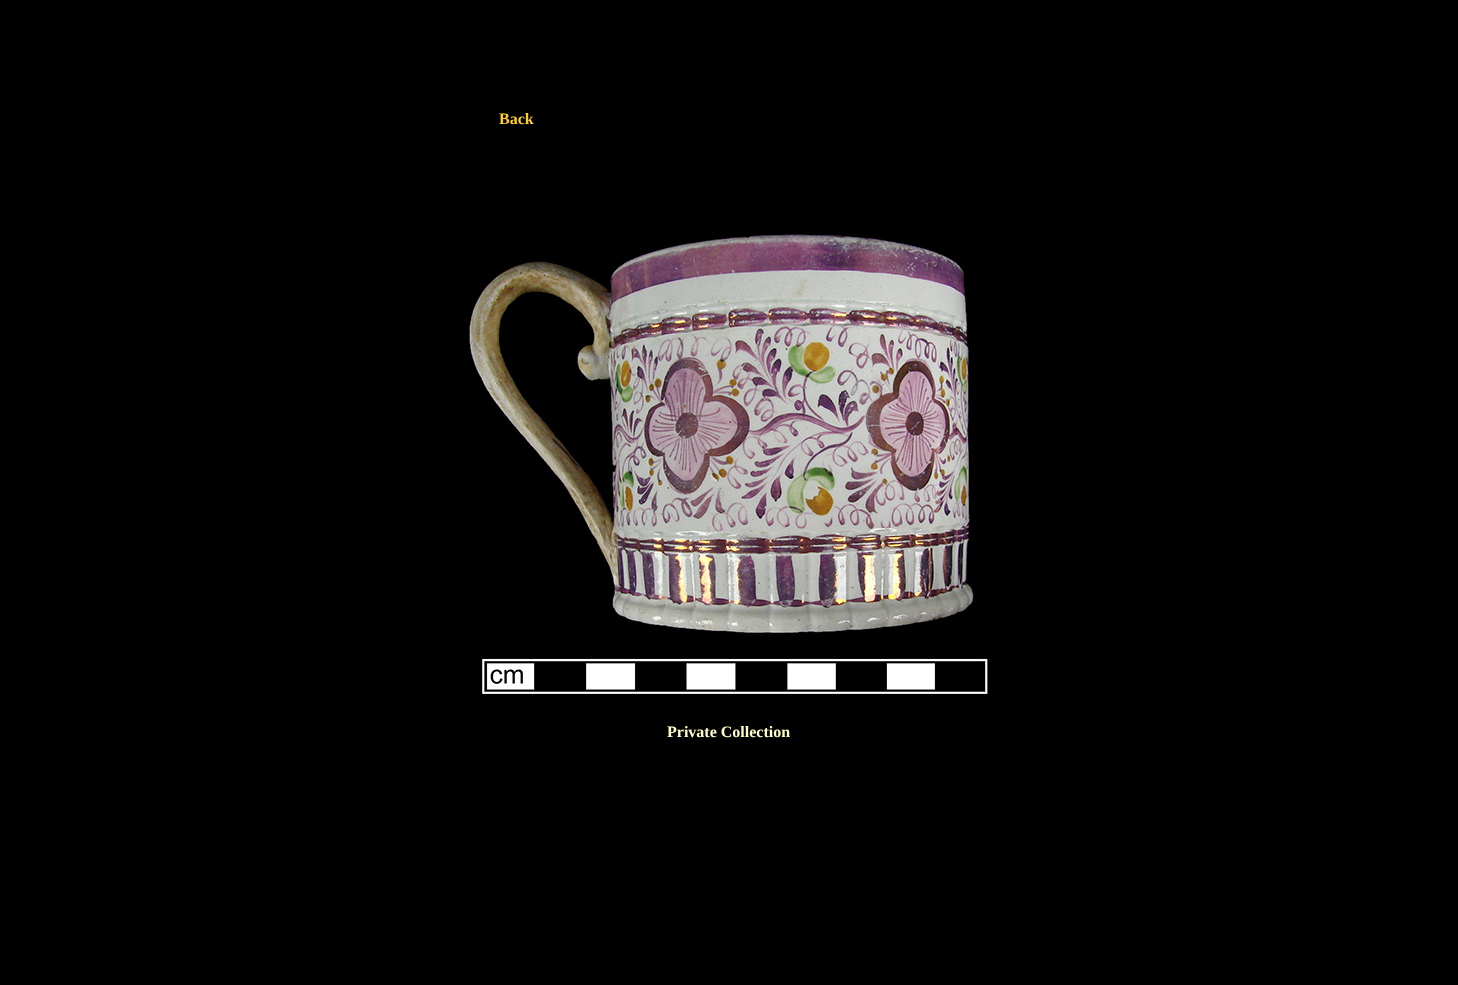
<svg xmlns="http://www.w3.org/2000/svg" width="1458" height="985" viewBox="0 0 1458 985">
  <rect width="100%" height="100%" fill="#000000"/>
  <text x="499" y="124" font-family="Liberation Serif" font-size="16" font-weight="bold" fill="#ffcc33">Back</text>
  <image x="469" y="234" width="519" height="460" href="img1.png"/>
  <text x="667" y="737" font-family="Liberation Serif" font-size="16" font-weight="bold" fill="#ffffcc">Private Collection</text>
</svg>
